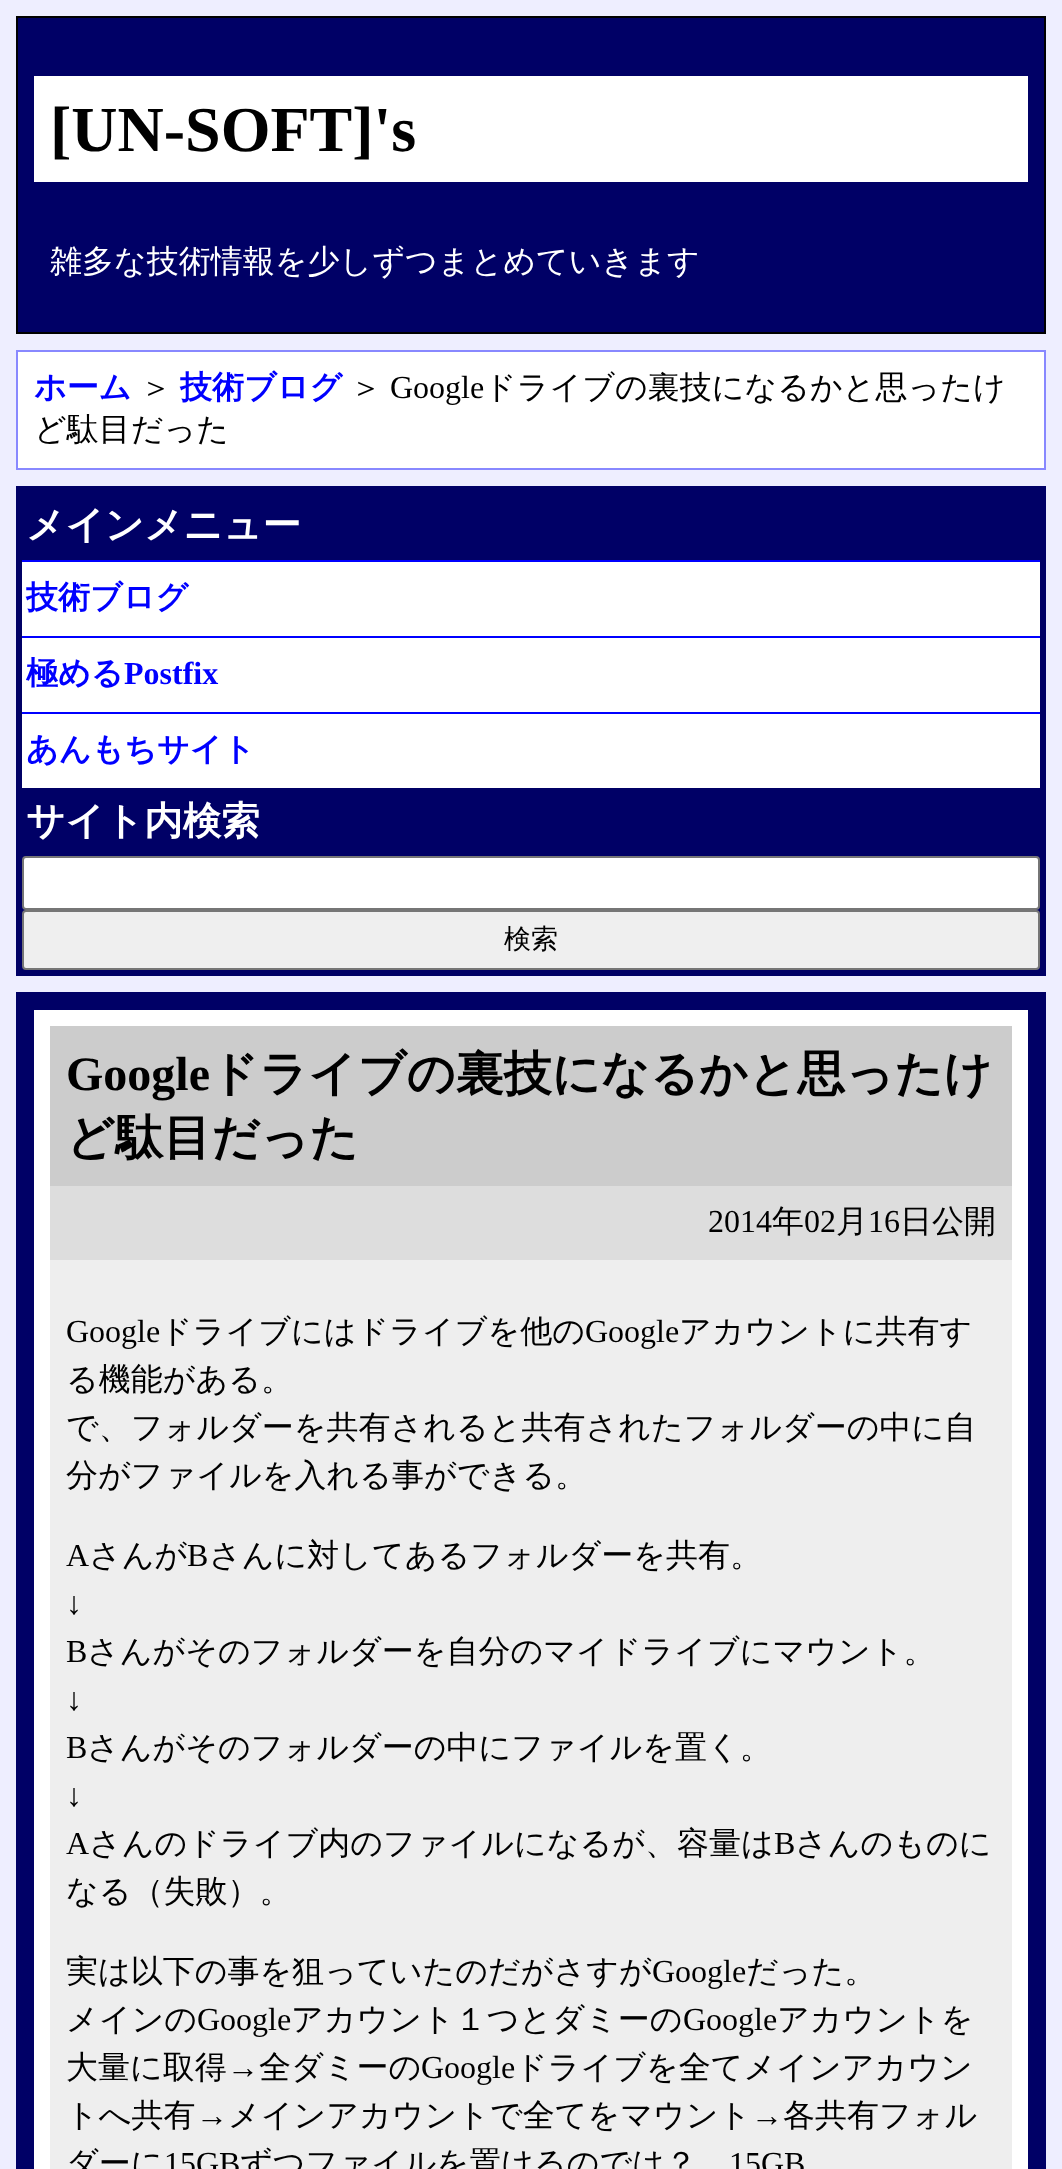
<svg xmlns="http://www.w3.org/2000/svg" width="1062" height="2169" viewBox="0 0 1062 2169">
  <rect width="100%" height="100%" fill="#eeeeff"/>
  <rect x="17" y="17" width="1028" height="316" fill="#000066" stroke="#000000" stroke-width="2"/>
  <rect x="34" y="76" width="994" height="106" fill="#ffffff"/>
  <text x="50" y="151" font-family="Liberation Serif" font-size="64" font-weight="bold" fill="#000000">[UN-SOFT]'s</text>
  <text x="50" y="272" font-family="WenQuanYi Zen Hei" font-size="32" font-weight="500" fill="#ffffff">雑多な技術情報を少しずつまとめていきます</text>
  <rect x="17" y="351" width="1028" height="118" fill="#ffffff" stroke="#8888ff" stroke-width="2"/>
  <text x="34" y="398" font-family="WenQuanYi Zen Hei" font-size="32" font-weight="bold" fill="#0000ff">ホーム</text>
  <text x="140" y="398" font-family="WenQuanYi Zen Hei" font-size="32" font-weight="500" fill="#000000">＞</text>
  <text x="180" y="398" font-family="WenQuanYi Zen Hei" font-size="32" font-weight="bold" fill="#0000ff">技術ブログ</text>
  <text x="350" y="398" font-family="WenQuanYi Zen Hei" font-size="32" font-weight="500" fill="#000000">＞</text>
  <text x="390" y="398" font-family="Liberation Serif" font-size="32" fill="#000000">Google</text>
  <text x="484" y="398" font-family="WenQuanYi Zen Hei" font-size="32" font-weight="500" fill="#000000">ドライブの裏技になるかと思ったけ</text>
  <text x="34" y="440" font-family="WenQuanYi Zen Hei" font-size="32" font-weight="500" fill="#000000">ど駄目だった</text>
  <rect x="16" y="486" width="1030" height="490" fill="#000066"/>
  <text x="26" y="538" font-family="WenQuanYi Zen Hei" font-size="38.5" font-weight="bold" fill="#ffffff">メインメニュー</text>
  <rect x="22" y="562" width="1018" height="74" fill="#ffffff"/>
  <rect x="22" y="560" width="1018" height="2" fill="#0000ff"/>
  <text x="26" y="608" font-family="WenQuanYi Zen Hei" font-size="32" font-weight="bold" fill="#0000ff">技術ブログ</text>
  <rect x="22" y="638" width="1018" height="74" fill="#ffffff"/>
  <rect x="22" y="636" width="1018" height="2" fill="#0000ff"/>
  <text x="26" y="684" font-family="WenQuanYi Zen Hei" font-size="32" font-weight="bold" fill="#0000ff">極める</text>
  <text x="124" y="684" font-family="Liberation Serif" font-size="32" font-weight="bold" fill="#0000ff">Postfix</text>
  <rect x="22" y="714" width="1018" height="74" fill="#ffffff"/>
  <rect x="22" y="712" width="1018" height="2" fill="#0000ff"/>
  <text x="26" y="760" font-family="WenQuanYi Zen Hei" font-size="32" font-weight="bold" fill="#0000ff">あんもちサイト</text>
  <text x="26" y="834" font-family="WenQuanYi Zen Hei" font-size="38.5" font-weight="bold" fill="#ffffff">サイト内検索</text>
  <rect x="23" y="857" width="1016" height="52" rx="3" fill="#ffffff" stroke="#767676" stroke-width="2"/>
  <rect x="23" y="911" width="1016" height="58" rx="3" fill="#efefef" stroke="#767676" stroke-width="2"/>
  <text x="504" y="948" font-family="WenQuanYi Zen Hei" font-size="27" font-weight="500" fill="#000000">検索</text>
  <rect x="16" y="992" width="1030" height="1177" fill="#000066"/>
  <rect x="34" y="1010" width="994" height="1159" fill="#ffffff"/>
  <rect x="50" y="1026" width="962" height="160" fill="#cccccc"/>
  <text x="66" y="1090" font-family="Liberation Serif" font-size="48" font-weight="bold" fill="#000000">Google</text>
  <text x="210" y="1090" font-family="WenQuanYi Zen Hei" font-size="48" font-weight="bold" fill="#000000">ドライブの裏技になるかと思ったけ</text>
  <text x="66" y="1154" font-family="WenQuanYi Zen Hei" font-size="48" font-weight="bold" fill="#000000">ど駄目だった</text>
  <rect x="50" y="1186" width="962" height="74" fill="#dddddd"/>
  <text x="708" y="1232" font-family="Liberation Serif" font-size="32" fill="#000000">2014</text>
  <text x="772" y="1232" font-family="WenQuanYi Zen Hei" font-size="32" font-weight="500" fill="#000000">年</text>
  <text x="804" y="1232" font-family="Liberation Serif" font-size="32" fill="#000000">02</text>
  <text x="836" y="1232" font-family="WenQuanYi Zen Hei" font-size="32" font-weight="500" fill="#000000">月</text>
  <text x="868" y="1232" font-family="Liberation Serif" font-size="32" fill="#000000">16</text>
  <text x="900" y="1232" font-family="WenQuanYi Zen Hei" font-size="32" font-weight="500" fill="#000000">日公開</text>
  <rect x="50" y="1260" width="962" height="909" fill="#eeeeee"/>
  <text x="66" y="1342" font-family="Liberation Serif" font-size="32" fill="#000000">Google</text>
  <text x="160" y="1342" font-family="WenQuanYi Zen Hei" font-size="32" font-weight="500" fill="#000000">ドライブにはドライブを他の</text>
  <text x="585" y="1342" font-family="Liberation Serif" font-size="32" fill="#000000">Google</text>
  <text x="679" y="1342" font-family="WenQuanYi Zen Hei" font-size="32" font-weight="500" fill="#000000">アカウントに共有す</text>
  <text x="66" y="1390" font-family="WenQuanYi Zen Hei" font-size="32" font-weight="500" fill="#000000">る機能がある。</text>
  <text x="66" y="1438" font-family="WenQuanYi Zen Hei" font-size="32" font-weight="500" fill="#000000">で、フォルダーを共有されると共有されたフォルダーの中に自</text>
  <text x="66" y="1486" font-family="WenQuanYi Zen Hei" font-size="32" font-weight="500" fill="#000000">分がファイルを入れる事ができる。</text>
  <text x="66" y="1566" font-family="Liberation Serif" font-size="32" fill="#000000">A</text>
  <text x="89" y="1566" font-family="WenQuanYi Zen Hei" font-size="32" font-weight="500" fill="#000000">さんが</text>
  <text x="187" y="1566" font-family="Liberation Serif" font-size="32" fill="#000000">B</text>
  <text x="209" y="1566" font-family="WenQuanYi Zen Hei" font-size="32" font-weight="500" fill="#000000">さんに対してあるフォルダーを共有。</text>
  <text x="66" y="1614" font-family="Liberation Serif" font-size="32" fill="#000000">↓</text>
  <text x="66" y="1662" font-family="Liberation Serif" font-size="32" fill="#000000">B</text>
  <text x="87" y="1662" font-family="WenQuanYi Zen Hei" font-size="32" font-weight="500" fill="#000000">さんがそのフォルダーを自分のマイドライブにマウント。</text>
  <text x="66" y="1710" font-family="Liberation Serif" font-size="32" fill="#000000">↓</text>
  <text x="66" y="1758" font-family="Liberation Serif" font-size="32" fill="#000000">B</text>
  <text x="87" y="1758" font-family="WenQuanYi Zen Hei" font-size="32" font-weight="500" fill="#000000">さんがそのフォルダーの中にファイルを置く。</text>
  <text x="66" y="1806" font-family="Liberation Serif" font-size="32" fill="#000000">↓</text>
  <text x="66" y="1854" font-family="Liberation Serif" font-size="32" fill="#000000">A</text>
  <text x="89" y="1854" font-family="WenQuanYi Zen Hei" font-size="32" font-weight="500" fill="#000000">さんのドライブ内のファイルになるが、容量は</text>
  <text x="774" y="1854" font-family="Liberation Serif" font-size="32" fill="#000000">B</text>
  <text x="795" y="1854" font-family="WenQuanYi Zen Hei" font-size="32" font-weight="500" fill="#000000">さんのものに</text>
  <text x="66" y="1902" font-family="WenQuanYi Zen Hei" font-size="32" font-weight="500" fill="#000000">なる（失敗）。</text>
  <text x="66" y="1982" font-family="WenQuanYi Zen Hei" font-size="32" font-weight="500" fill="#000000">実は以下の事を狙っていたのだがさすが</text>
  <text x="652" y="1982" font-family="Liberation Serif" font-size="32" fill="#000000">Google</text>
  <text x="746" y="1982" font-family="WenQuanYi Zen Hei" font-size="32" font-weight="500" fill="#000000">だった。</text>
  <text x="66" y="2030" font-family="WenQuanYi Zen Hei" font-size="32" font-weight="500" fill="#000000">メインの</text>
  <text x="197" y="2030" font-family="Liberation Serif" font-size="32" fill="#000000">Google</text>
  <text x="291" y="2030" font-family="WenQuanYi Zen Hei" font-size="32" font-weight="500" fill="#000000">アカウント１つとダミーの</text>
  <text x="683" y="2030" font-family="Liberation Serif" font-size="32" fill="#000000">Google</text>
  <text x="777" y="2030" font-family="WenQuanYi Zen Hei" font-size="32" font-weight="500" fill="#000000">アカウントを</text>
  <text x="66" y="2078" font-family="WenQuanYi Zen Hei" font-size="32" font-weight="500" fill="#000000">大量に取得</text>
  <text x="227" y="2078" font-family="Liberation Serif" font-size="32" fill="#000000">→</text>
  <text x="259" y="2078" font-family="WenQuanYi Zen Hei" font-size="32" font-weight="500" fill="#000000">全ダミーの</text>
  <text x="421" y="2078" font-family="Liberation Serif" font-size="32" fill="#000000">Google</text>
  <text x="515" y="2078" font-family="WenQuanYi Zen Hei" font-size="32" font-weight="500" fill="#000000">ドライブを全てメインアカウン</text>
  <text x="66" y="2126" font-family="WenQuanYi Zen Hei" font-size="32" font-weight="500" fill="#000000">トへ共有</text>
  <text x="196" y="2126" font-family="Liberation Serif" font-size="32" fill="#000000">→</text>
  <text x="228" y="2126" font-family="WenQuanYi Zen Hei" font-size="32" font-weight="500" fill="#000000">メインアカウントで全てをマウント</text>
  <text x="751" y="2126" font-family="Liberation Serif" font-size="32" fill="#000000">→</text>
  <text x="783" y="2126" font-family="WenQuanYi Zen Hei" font-size="32" font-weight="500" fill="#000000">各共有フォル</text>
  <text x="66" y="2174" font-family="WenQuanYi Zen Hei" font-size="32" font-weight="500" fill="#000000">ダーに</text>
  <text x="164" y="2174" font-family="Liberation Serif" font-size="32" fill="#000000">15GB</text>
  <text x="240" y="2174" font-family="WenQuanYi Zen Hei" font-size="32" font-weight="500" fill="#000000">ずつファイルを置けるのでは？</text>
  <text x="729" y="2174" font-family="Liberation Serif" font-size="32" fill="#000000">15GB</text>
</svg>
